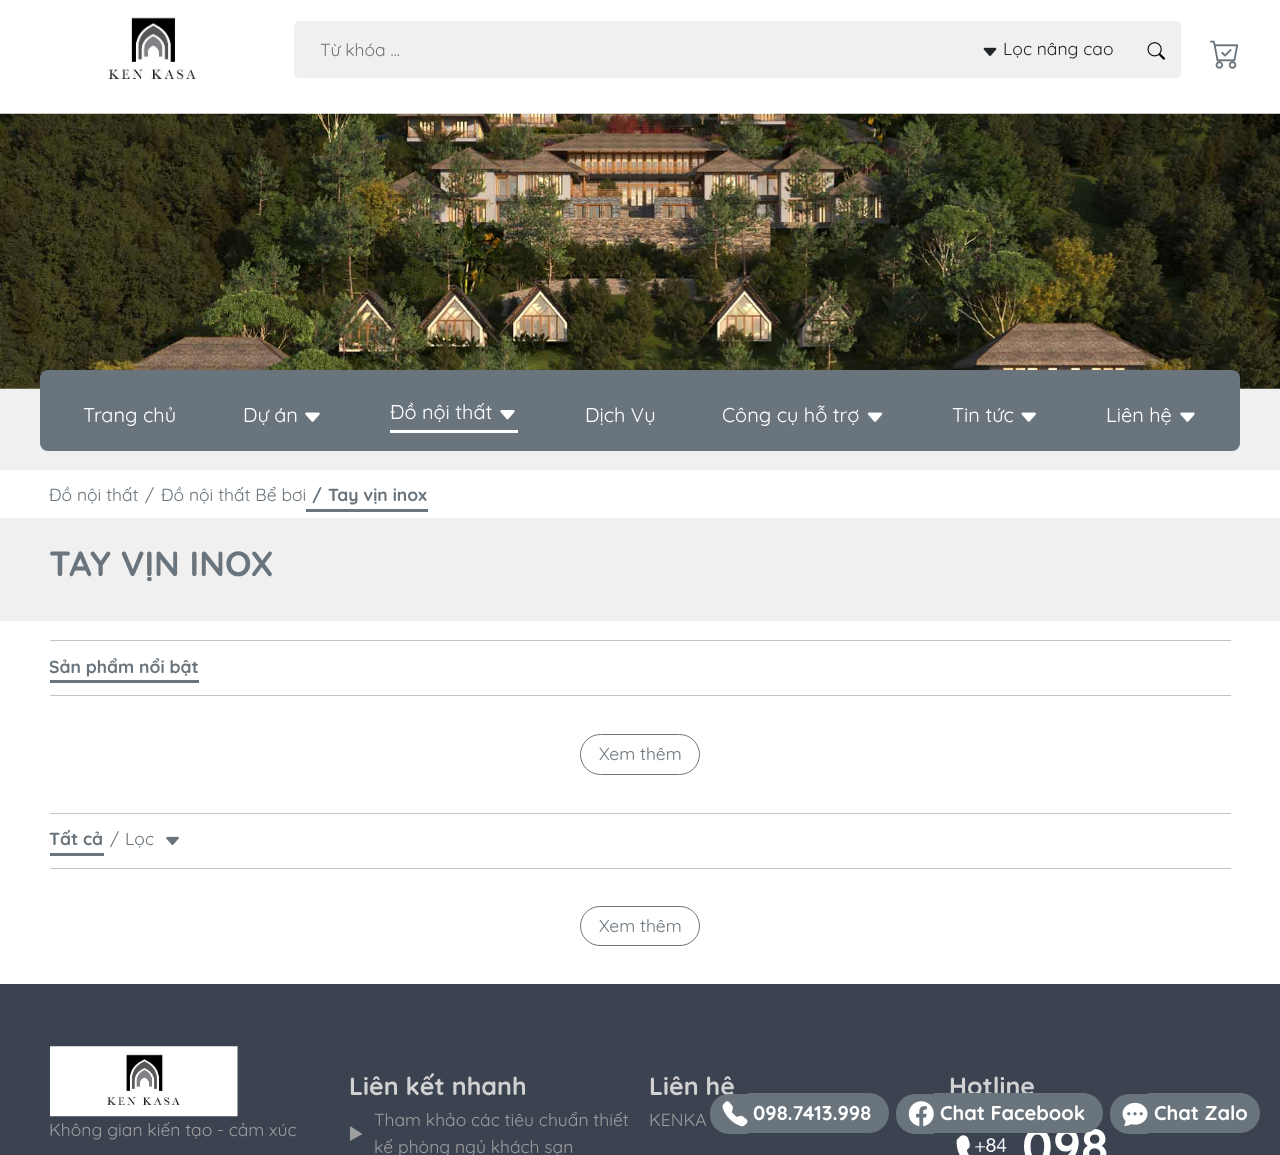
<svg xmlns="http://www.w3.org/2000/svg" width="1280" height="1155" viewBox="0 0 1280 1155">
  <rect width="100%" height="100%" fill="#ffffff"/>
  <image x="108" y="17" width="88" height="63" href="img1.png"/>
  <rect x="294" y="21" width="887" height="57" rx="5" fill="#f0f0f0"/>
  <text x="320" y="56" font-family="Quicksand" font-size="17.5" fill="#757575">Từ khóa ...</text>
  <image x="983" y="47" width="14" height="9" href="img2.png"/>
  <text x="1003" y="55" font-family="Quicksand" font-size="17.5" fill="#212529">Lọc nâng cao</text>
  <image x="1147" y="42" width="18" height="18" href="img3.png"/>
  <image x="1210" y="40" width="29" height="29" href="img4.png"/>
  <image x="0" y="113" width="1280" height="276" href="img5.png"/>
  <rect x="0" y="389" width="1280" height="81" fill="#f0f0f0"/>
  <rect x="40" y="370" width="1200" height="81" rx="8" fill="#69747c"/>
  <text x="83" y="422" font-family="Quicksand" font-size="20" fill="#ffffff">Trang chủ</text>
  <text x="243" y="422" font-family="Quicksand" font-size="20" fill="#ffffff">Dự án</text>
  <image x="305" y="412" width="15" height="10" href="img6.png"/>
  <rect x="390" y="430" width="128" height="3" fill="#ffffff"/>
  <text x="390" y="419" font-family="Quicksand" font-size="20" fill="#ffffff">Đồ nội thất</text>
  <image x="500" y="410" width="15" height="10" href="img7.png"/>
  <text x="585" y="422" font-family="Quicksand" font-size="20" fill="#ffffff">Dịch Vụ</text>
  <text x="722" y="422" font-family="Quicksand" font-size="20" fill="#ffffff">Công cụ hỗ trợ</text>
  <image x="867" y="412" width="16" height="10" href="img8.png"/>
  <text x="952" y="422" font-family="Quicksand" font-size="20" fill="#ffffff">Tin tức</text>
  <image x="1021" y="412" width="15" height="10" href="img9.png"/>
  <text x="1106" y="422" font-family="Quicksand" font-size="20" fill="#ffffff">Liên hệ</text>
  <image x="1180" y="412" width="15" height="10" href="img6.png"/>
  <text x="49" y="501" font-family="Quicksand" font-size="17.5" fill="#69747c">Đồ nội thất</text>
  <text x="145" y="501" font-family="Quicksand" font-size="17.5" fill="#69747c">/</text>
  <text x="161" y="501" font-family="Quicksand" font-size="17.5" fill="#69747c">Đồ nội thất Bể bơi</text>
  <rect x="306" y="509" width="122" height="3" fill="#69747c"/>
  <text x="312" y="501" font-family="Quicksand" font-size="17.5" font-weight="bold" fill="#69747c">/</text>
  <text x="328" y="501" font-family="Quicksand" font-size="17.5" font-weight="bold" fill="#69747c">Tay vịn inox</text>
  <rect x="0" y="518" width="1280" height="103" fill="#f0f0f0"/>
  <text x="49" y="576" font-family="Quicksand" font-size="35" font-weight="bold" fill="#69747c">TAY VỊN INOX</text>
  <rect x="50" y="640" width="1181" height="1" fill="#c4c4c4"/>
  <rect x="50" y="695" width="1181" height="1" fill="#c4c4c4"/>
  <rect x="50" y="680" width="149" height="3" fill="#69747c"/>
  <text x="49" y="673" font-family="Quicksand" font-size="17.5" font-weight="bold" fill="#69747c">Sản phẩm nổi bật</text>
  <rect x="580.5" y="734.5" width="119" height="40" rx="20" fill="none" stroke="#6c757d"/>
  <text x="599" y="760" font-family="Quicksand" font-size="17.5" fill="#69747c">Xem thêm</text>
  <rect x="50" y="813" width="1181" height="1" fill="#c4c4c4"/>
  <rect x="50" y="868" width="1181" height="1" fill="#c4c4c4"/>
  <rect x="50" y="853" width="54" height="3" fill="#69747c"/>
  <text x="49" y="845" font-family="Quicksand" font-size="17.5" font-weight="bold" fill="#69747c">Tất cả</text>
  <text x="110" y="845" font-family="Quicksand" font-size="17.5" fill="#69747c">/</text>
  <text x="125" y="845" font-family="Quicksand" font-size="17.5" fill="#69747c">Lọc</text>
  <image x="166" y="836" width="13" height="9" href="img10.png"/>
  <rect x="580.5" y="906.5" width="119" height="39" rx="19.5" fill="none" stroke="#6c757d"/>
  <text x="599" y="932" font-family="Quicksand" font-size="17.5" fill="#69747c">Xem thêm</text>
  <rect x="0" y="984" width="1280" height="171" fill="#3b4350"/>
  <image x="50" y="1046" width="188" height="71" href="img11.png"/>
  <text x="49" y="1136" font-family="Quicksand" font-size="17.5" fill="#9e9e9e">Không gian kiến tạo - cảm xúc</text>
  <text x="349" y="1095" font-family="Quicksand" font-size="25" font-weight="bold" fill="#d1d1d1">Liên kết nhanh</text>
  <text x="374" y="1126" font-family="Quicksand" font-size="17.5" fill="#9e9e9e">Tham khảo các tiêu chuẩn thiết</text>
  <path d="M350 1141V1126L362.5 1134Z" fill="#9e9e9e"/>
  <text x="374" y="1153" font-family="Quicksand" font-size="17.5" fill="#9e9e9e">kế phòng ngủ khách sạn</text>
  <text x="649" y="1095" font-family="Quicksand" font-size="25" font-weight="bold" fill="#d1d1d1">Liên hệ</text>
  <text x="649" y="1126" font-family="Quicksand" font-size="17.5" fill="#9e9e9e">KENKA</text>
  <text x="949" y="1095" font-family="Quicksand" font-size="25" font-weight="bold" fill="#d1d1d1">Hotline</text>
  <image x="956" y="1135" width="51" height="20" href="img12.png"/>
  <text x="1022" y="1164" font-family="Quicksand" font-size="50" font-weight="bold" fill="#ffffff">098</text>
  <path d="M729 1094H748V1134H729C718.5 1134 710 1125.5 710 1115V1113C710 1102.5 718.5 1094 729 1094Z" fill="#69747c"/>
  <path d="M748 1093H869C880 1093 889 1102 889 1113C889 1124 880 1133 869 1133H748Z" fill="#69747c"/>
  <image x="722" y="1101" width="26" height="26" href="img13.png"/>
  <text x="753" y="1120" font-family="Quicksand" font-size="20" font-weight="bold" fill="#ffffff">098.7413.998</text>
  <path d="M915 1094H934V1134H915C904.5 1134 896 1125.5 896 1115V1113C896 1102.5 904.5 1094 915 1094Z" fill="#69747c"/>
  <path d="M934 1093H1083C1094 1093 1103 1102 1103 1113C1103 1124 1094 1133 1083 1133H934Z" fill="#69747c"/>
  <image x="908" y="1101" width="26" height="26" href="img14.png"/>
  <text x="940" y="1120" font-family="Quicksand" font-size="20" font-weight="bold" fill="#ffffff">Chat Facebook</text>
  <path d="M1129 1094H1148V1134H1129C1118.5 1134 1110 1125.5 1110 1115V1113C1110 1102.5 1118.5 1094 1129 1094Z" fill="#69747c"/>
  <path d="M1148 1093H1240C1251 1093 1260 1102 1260 1113C1260 1124 1251 1133 1240 1133H1148Z" fill="#69747c"/>
  <image x="1122" y="1102" width="26" height="25" href="img15.png"/>
  <text x="1154" y="1120" font-family="Quicksand" font-size="20" font-weight="bold" fill="#ffffff">Chat Zalo</text>
</svg>
